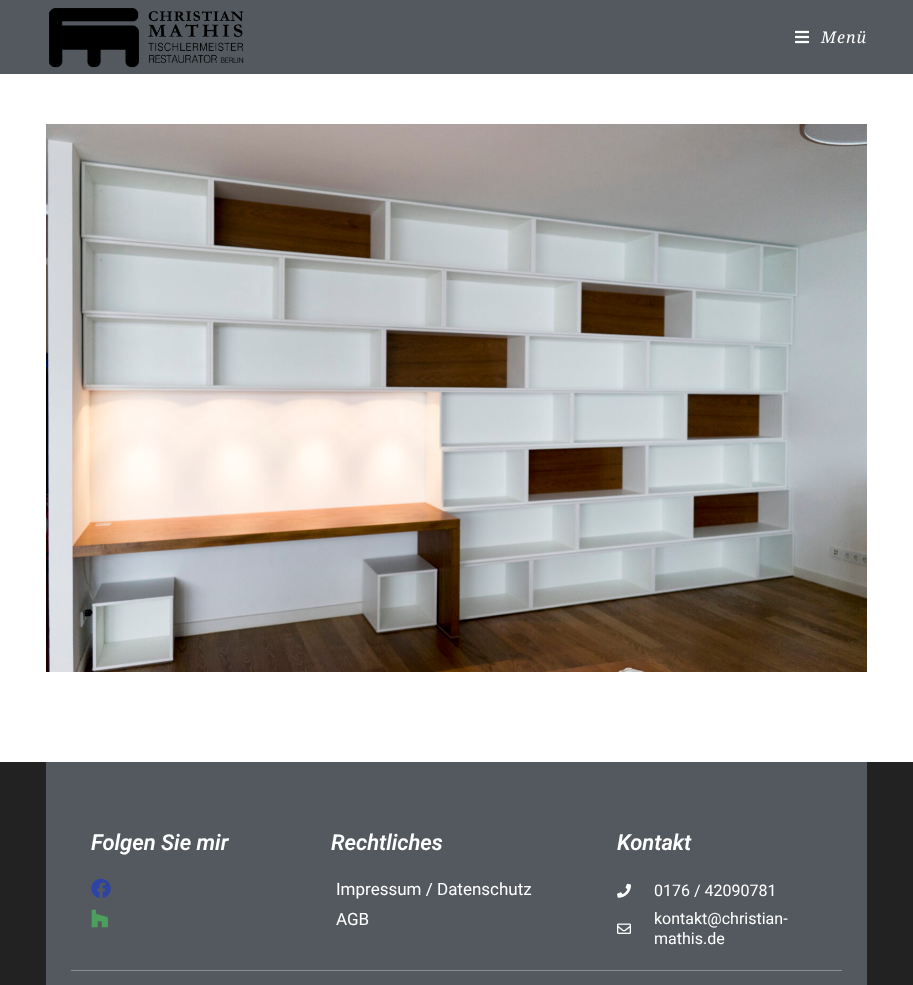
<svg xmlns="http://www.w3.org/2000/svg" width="913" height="985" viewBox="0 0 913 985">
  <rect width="100%" height="100%" fill="#ffffff"/>
  <rect x="0" y="0" width="913" height="74" fill="#54595f"/>
  <image x="49" y="8" width="195" height="60" href="img1.png"/>
  <image x="795" y="30" width="14" height="14" href="img2.png"/>
  <text x="821" y="43" font-family="Noto Serif" font-size="16" font-style="italic" letter-spacing="1" fill="#ffffff">Menü</text>
  <image x="46" y="124" width="821" height="548" href="img3.png"/>
  <rect x="0" y="762" width="913" height="223" fill="#222222"/>
  <rect x="46" y="762" width="821" height="223" fill="#54595f"/>
  <text x="91" y="850" font-family="Roboto" font-size="22" font-weight="600" font-style="italic" fill="#ffffff">Folgen Sie mir</text>
  <image x="91" y="879" width="20" height="19" href="img4.png"/>
  <image x="91" y="909" width="17" height="19" href="img5.png"/>
  <text x="331" y="850" font-family="Roboto" font-size="22" font-weight="600" font-style="italic" fill="#ffffff">Rechtliches</text>
  <text x="336" y="895" font-family="Roboto" font-size="17" fill="#ffffff">Impressum / Datenschutz</text>
  <text x="336" y="925" font-family="Roboto" font-size="17" fill="#ffffff">AGB</text>
  <text x="617" y="850" font-family="Roboto" font-size="22" font-weight="600" font-style="italic" fill="#ffffff">Kontakt</text>
  <image x="617" y="883" width="14" height="15" href="img6.png"/>
  <text x="654" y="896" font-family="Roboto" font-size="16" fill="#ffffff">0176 / 42090781</text>
  <image x="617" y="923" width="14" height="11" href="img7.png"/>
  <text x="654" y="924" font-family="Roboto" font-size="16" fill="#ffffff">kontakt@christian-</text>
  <text x="654" y="944" font-family="Roboto" font-size="16" fill="#ffffff">mathis.de</text>
  <rect x="71" y="970" width="771" height="1" fill="#898c91"/>
</svg>
